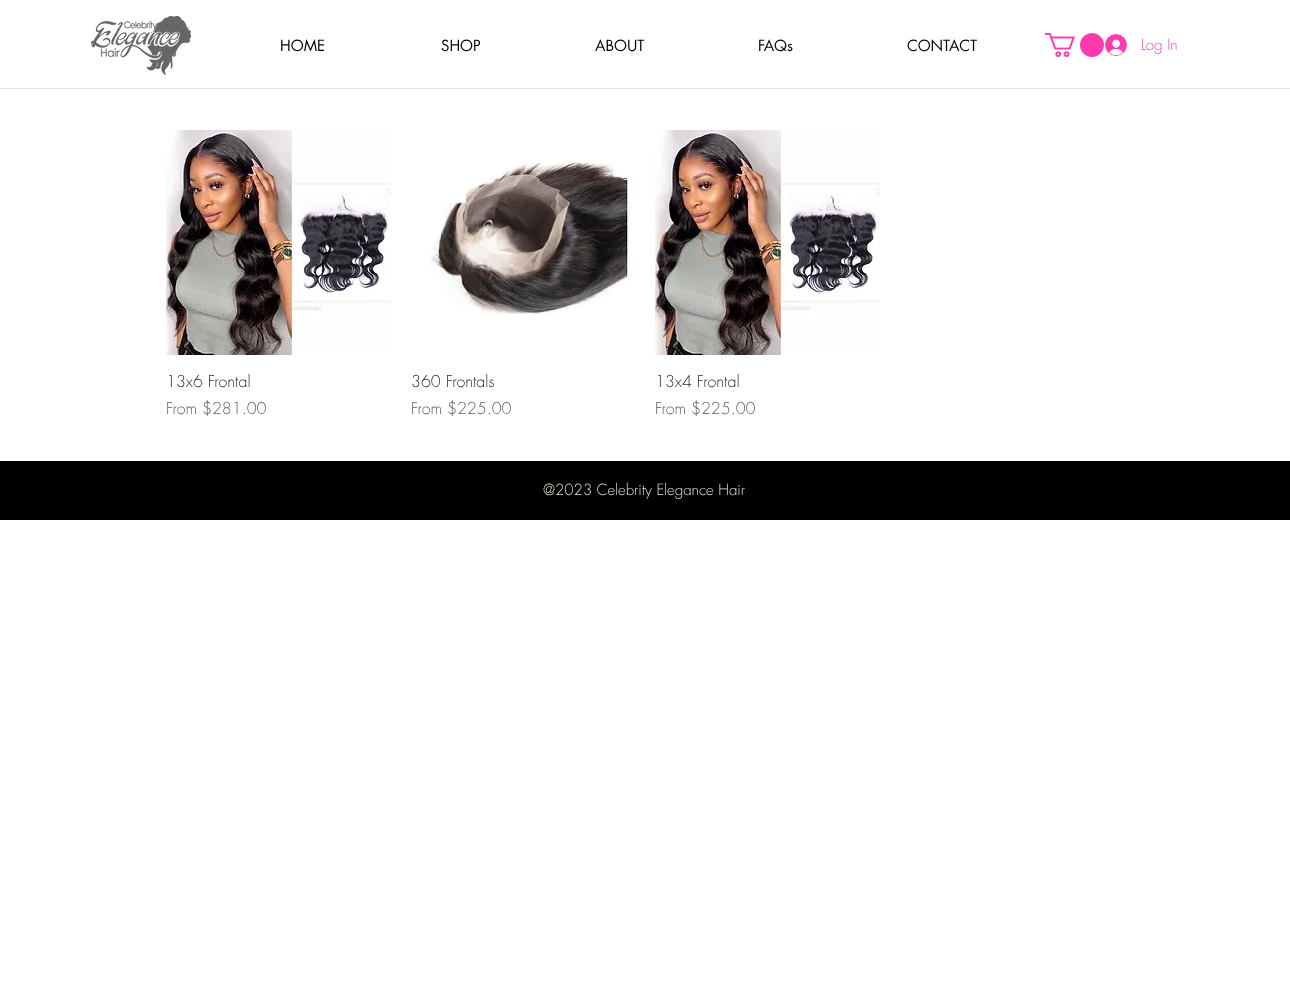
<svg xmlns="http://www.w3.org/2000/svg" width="1290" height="981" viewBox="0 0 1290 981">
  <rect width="100%" height="100%" fill="#ffffff"/>
  <image x="91" y="16" width="100" height="59" href="img1.png"/>
  <text x="280" y="51" font-family="futura" font-size="15" fill="#000000">HOME</text>
  <text x="441" y="51" font-family="futura" font-size="15" fill="#000000">SHOP</text>
  <text x="595" y="51" font-family="futura" font-size="15" fill="#000000">ABOUT</text>
  <text x="758" y="51" font-family="futura" font-size="15" fill="#000000">FAQs</text>
  <text x="907" y="51" font-family="futura" font-size="15" fill="#000000">CONTACT</text>
  <image x="1045" y="33" width="59" height="24" href="img2.png"/>
  <image x="1105" y="34" width="22" height="22" href="img3.png"/>
  <text x="1141" y="50" font-family="futura" font-size="15" font-weight="300" fill="#ff39ae">Log In</text>
  <rect x="0" y="88" width="1290" height="1" fill="#e5e1d3"/>
  <image x="166" y="130" width="225" height="225" href="img4.png"/>
  <text x="166" y="387" font-family="futura" font-size="16" font-weight="300" fill="#2c2c2b">13x6 Frontal</text>
  <text x="166" y="414" font-family="futura" font-size="16" font-weight="300" fill="#5e5d5d">From $281.00</text>
  <image x="429" y="162" width="201" height="153" href="img5.png"/>
  <text x="411" y="387" font-family="futura" font-size="16" font-weight="300" fill="#2c2c2b">360 Frontals</text>
  <text x="411" y="414" font-family="futura" font-size="16" font-weight="300" fill="#5e5d5d">From $225.00</text>
  <image x="655" y="130" width="225" height="225" href="img4.png"/>
  <text x="655" y="387" font-family="futura" font-size="16" font-weight="300" fill="#2c2c2b">13x4 Frontal</text>
  <text x="655" y="414" font-family="futura" font-size="16" font-weight="300" fill="#5e5d5d">From $225.00</text>
  <rect x="0" y="461" width="1290" height="59" fill="#000000"/>
  <text x="543" y="495" font-family="futura" font-size="15" font-weight="300" fill="#e5dec9">@2023 Celebrity Elegance Hair</text>
</svg>
